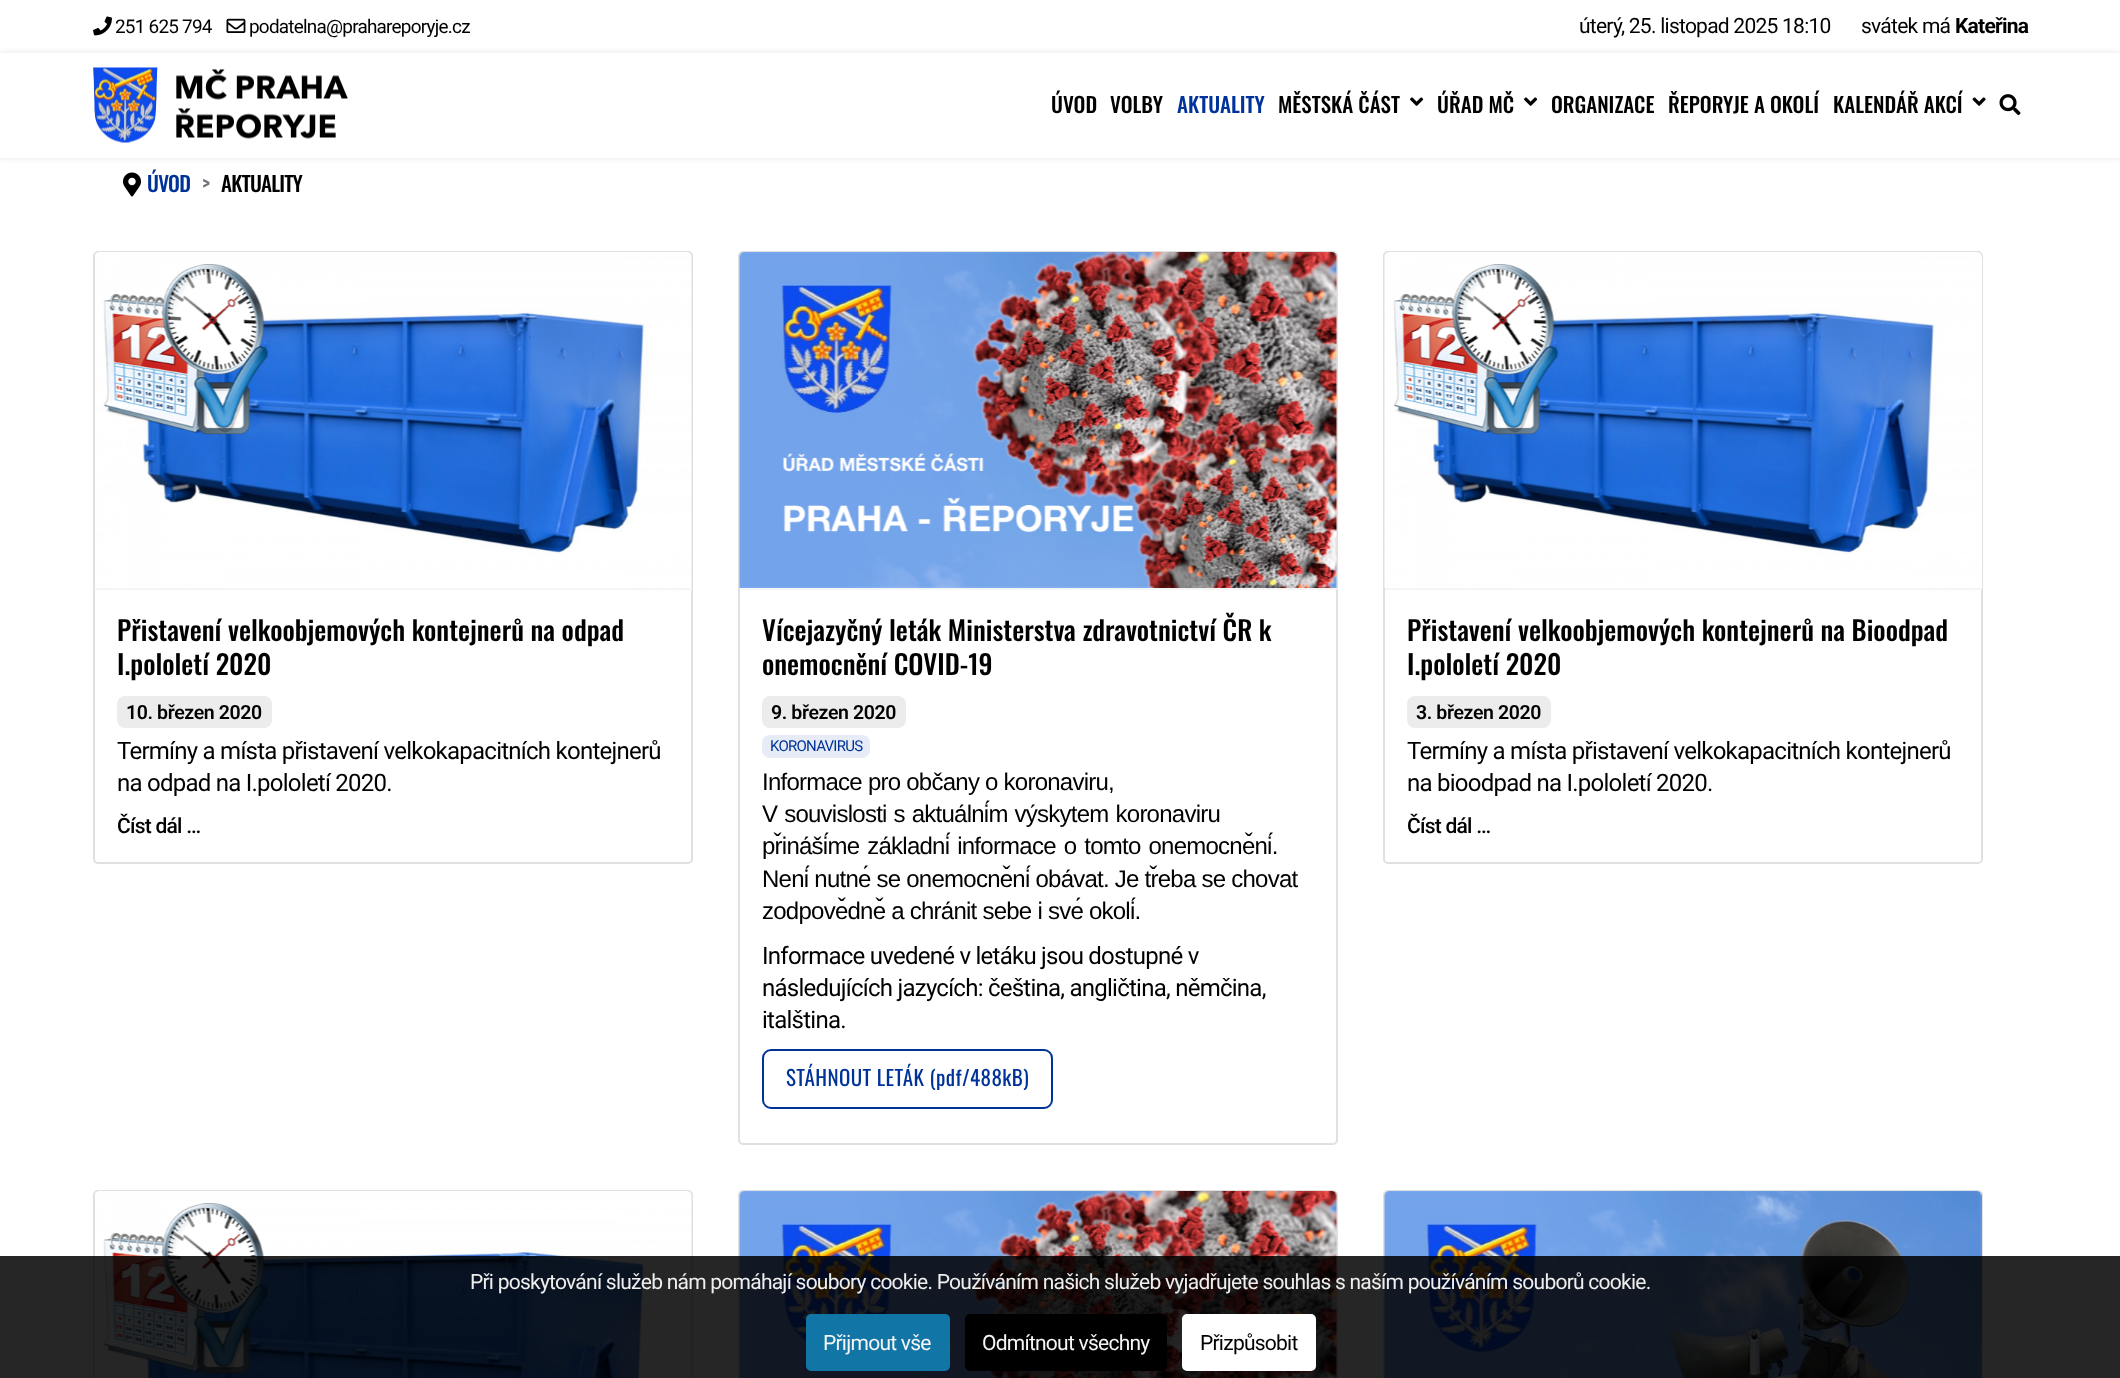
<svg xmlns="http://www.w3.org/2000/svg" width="2120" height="1378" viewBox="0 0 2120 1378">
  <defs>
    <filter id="blur1" x="-50%" y="-200%" width="200%" height="500%"><feGaussianBlur stdDeviation="3"/></filter>
  </defs>
  <rect width="100%" height="100%" fill="#ffffff"/>
  <image x="93" y="16" width="19" height="20" href="img1.png"/>
  <text x="115" y="33" font-family="Roboto" font-size="18.9" letter-spacing="-0.75" fill="#000000">251 625 794</text>
  <image x="226" y="18" width="20" height="15" href="img2.png"/>
  <text x="249" y="33" font-family="Roboto" font-size="18.9" letter-spacing="-0.75" fill="#000000">podatelna@prahareporyje.cz</text>
  <text x="1579" y="33" font-family="Roboto" font-size="21" letter-spacing="-0.75" fill="#000000">úterý, 25. listopad 2025 18:10</text>
  <text x="1861" y="33" font-family="Roboto" font-size="21" letter-spacing="-0.75" fill="#000000">svátek má</text>
  <text x="1955" y="33" font-family="Roboto" font-size="21" font-weight="bold" letter-spacing="-0.75" fill="#000000">Kateřina</text>
  <rect x="0" y="53" width="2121" height="105" fill="#000000" fill-opacity="0.1" filter="url(#blur1)"/>
  <rect x="0" y="53" width="2120" height="105" fill="#ffffff"/>
  <image x="93" y="67" width="255" height="76" href="img3.png"/>
  <text x="1051" y="113" font-family="Oswald" font-size="21" font-weight="500" fill="#000000">ÚVOD</text>
  <text x="1110" y="113" font-family="Oswald" font-size="21" font-weight="500" fill="#000000">VOLBY</text>
  <text x="1177" y="113" font-family="Oswald" font-size="21" font-weight="500" fill="#003399">AKTUALITY</text>
  <text x="1278" y="113" font-family="Oswald" font-size="21" font-weight="500" fill="#000000">MĚSTSKÁ ČÁST</text>
  <image x="1410" y="97" width="14" height="9" href="img4.png"/>
  <text x="1437" y="113" font-family="Oswald" font-size="21" font-weight="500" fill="#000000">ÚŘAD MČ</text>
  <image x="1524" y="97" width="14" height="9" href="img4.png"/>
  <text x="1551" y="113" font-family="Oswald" font-size="21" font-weight="500" fill="#000000">ORGANIZACE</text>
  <text x="1668" y="113" font-family="Oswald" font-size="21" font-weight="500" fill="#000000">ŘEPORYJE A OKOLÍ</text>
  <text x="1833" y="113" font-family="Oswald" font-size="21" font-weight="500" fill="#000000">KALENDÁŘ AKCÍ</text>
  <image x="1972" y="97" width="14" height="9" href="img5.png"/>
  <image x="1999" y="94" width="22" height="22" href="img6.png"/>
  <image x="123" y="172" width="18" height="25" href="img7.png"/>
  <text x="147" y="192" font-family="Oswald" font-size="21" font-weight="500" letter-spacing="-0.75" fill="#003399">ÚVOD</text>
  <text x="202" y="192" font-family="Oswald" font-size="21" font-weight="500" letter-spacing="-0.75" fill="#6c757d">&gt;</text>
  <text x="221" y="192" font-family="Oswald" font-size="21" font-weight="500" letter-spacing="-0.75" fill="#000000">AKTUALITY</text>
  <rect x="94" y="252" width="598" height="611" rx="4" fill="none" stroke="#e0e0e0" stroke-width="2"/>
  <rect x="95" y="588" width="597" height="2" fill="#f5f5f5"/>
  <image x="95" y="252" width="597" height="336" href="img8.png"/>
  <text x="117" y="641" font-family="Oswald" font-size="27" font-weight="500" fill="#000000">Přistavení velkoobjemových kontejnerů na odpad</text>
  <text x="117" y="675" font-family="Oswald" font-size="27" font-weight="500" fill="#000000">I.pololetí 2020</text>
  <rect x="117" y="696" width="155" height="32" rx="8" fill="#ececec"/>
  <text x="126" y="719" font-family="Roboto" font-size="19.5" font-weight="600" letter-spacing="-0.4" fill="#000000">10. březen 2020</text>
  <text x="117" y="759" font-family="Roboto" font-size="24" letter-spacing="-0.75" fill="#000000">Termíny a místa přistavení velkokapacitních kontejnerů</text>
  <text x="117" y="791" font-family="Roboto" font-size="24" letter-spacing="-0.75" fill="#000000">na odpad na I.pololetí 2020.</text>
  <text x="117" y="833" font-family="Roboto" font-size="21" font-weight="500" letter-spacing="-0.75" fill="#000000">Číst dál …</text>
  <rect x="739" y="252" width="598" height="892" rx="4" fill="none" stroke="#e0e0e0" stroke-width="2"/>
  <rect x="740" y="588" width="597" height="2" fill="#f5f5f5"/>
  <image x="739" y="252" width="598" height="336" href="img9.png"/>
  <text x="762" y="641" font-family="Oswald" font-size="27" font-weight="500" fill="#000000">Vícejazyčný leták Ministerstva zdravotnictví ČR k</text>
  <text x="762" y="675" font-family="Oswald" font-size="27" font-weight="500" fill="#000000">onemocnění COVID-19</text>
  <rect x="762" y="696" width="144" height="32" rx="8" fill="#ececec"/>
  <text x="771" y="719" font-family="Roboto" font-size="19.5" font-weight="600" letter-spacing="-0.4" fill="#000000">9. březen 2020</text>
  <rect x="762" y="735" width="108" height="23" rx="8" fill="#e6ebf5"/>
  <text x="770" y="751" font-family="Roboto" font-size="15" letter-spacing="-0.75" fill="#003399">KORONAVIRUS</text>
  <text x="762" y="790" font-family="Liberation Sans" font-size="24" letter-spacing="-0.75" fill="#000000">Informace pro občany o koronaviru,</text>
  <text x="762" y="822" word-spacing="1" font-family="Liberation Sans" font-size="24" letter-spacing="-0.75" fill="#000000">V souvislosti s aktuálním výskytem koronaviru</text>
  <text x="762" y="854" word-spacing="2" font-family="Liberation Sans" font-size="24" letter-spacing="-0.75" fill="#000000">přinášíme základní informace o tomto onemocnění.</text>
  <text x="762" y="887" font-family="Liberation Sans" font-size="24" letter-spacing="-0.75" fill="#000000">Není nutné se onemocnění obávat. Je třeba se chovat</text>
  <text x="762" y="919" font-family="Liberation Sans" font-size="24" letter-spacing="-0.75" fill="#000000">zodpovědně a chránit sebe i své okolí.</text>
  <text x="762" y="964" font-family="Roboto" font-size="24" letter-spacing="-0.75" fill="#000000">Informace uvedené v letáku jsou dostupné v</text>
  <text x="762" y="996" font-family="Roboto" font-size="24" letter-spacing="-0.75" fill="#000000">následujících jazycích: čeština, angličtina, němčina,</text>
  <text x="762" y="1028" font-family="Roboto" font-size="24" letter-spacing="-0.75" fill="#000000">italština.</text>
  <rect x="763" y="1050" width="289" height="58" rx="8" fill="none" stroke="#003399" stroke-width="2"/>
  <text x="786" y="1086" font-family="Oswald" font-size="21" letter-spacing="0.4" fill="#003399">STÁHNOUT LETÁK (pdf/488kB)</text>
  <rect x="1384" y="252" width="598" height="611" rx="4" fill="none" stroke="#e0e0e0" stroke-width="2"/>
  <rect x="1385" y="588" width="597" height="2" fill="#f5f5f5"/>
  <image x="1384" y="252" width="598" height="336" href="img10.png"/>
  <text x="1407" y="641" font-family="Oswald" font-size="27" font-weight="500" fill="#000000">Přistavení velkoobjemových kontejnerů na Bioodpad</text>
  <text x="1407" y="675" font-family="Oswald" font-size="27" font-weight="500" fill="#000000">I.pololetí 2020</text>
  <rect x="1407" y="696" width="144" height="32" rx="8" fill="#ececec"/>
  <text x="1416" y="719" font-family="Roboto" font-size="19.5" font-weight="600" letter-spacing="-0.4" fill="#000000">3. březen 2020</text>
  <text x="1407" y="759" font-family="Roboto" font-size="24" letter-spacing="-0.75" fill="#000000">Termíny a místa přistavení velkokapacitních kontejnerů</text>
  <text x="1407" y="791" font-family="Roboto" font-size="24" letter-spacing="-0.75" fill="#000000">na bioodpad na I.pololetí 2020.</text>
  <text x="1407" y="833" font-family="Roboto" font-size="21" font-weight="500" letter-spacing="-0.75" fill="#000000">Číst dál …</text>
  <rect x="94" y="1191" width="598" height="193" rx="4" fill="none" stroke="#e0e0e0" stroke-width="2"/>
  <image x="95" y="1191" width="597" height="187" href="img11.png"/>
  <rect x="739" y="1191" width="598" height="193" rx="4" fill="none" stroke="#e0e0e0" stroke-width="2"/>
  <image x="739" y="1191" width="598" height="187" href="img12.png"/>
  <rect x="1384" y="1191" width="598" height="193" rx="4" fill="none" stroke="#e0e0e0" stroke-width="2"/>
  <image x="1384" y="1191" width="598" height="187" href="img13.png"/>
  <rect x="0" y="1256" width="2120" height="122" fill="#000000" fill-opacity="0.85"/>
  <text x="470" y="1289" font-family="Roboto" font-size="21" letter-spacing="-0.75" fill="#eeeeee">Při poskytování služeb nám pomáhají soubory cookie. Používáním našich služeb vyjadřujete souhlas s naším používáním souborů cookie.</text>
  <rect x="807.5" y="1315.5" width="141" height="54" rx="3.5" fill="#1176a6" stroke="#1176a6" stroke-width="3"/>
  <text x="823" y="1350" font-family="Roboto" font-size="21" letter-spacing="-0.75" fill="#f5f5f5">Přijmout vše</text>
  <rect x="966.5" y="1315.5" width="199" height="54" rx="3.5" fill="#000000" stroke="#000000" stroke-width="3"/>
  <text x="982" y="1350" font-family="Roboto" font-size="21" letter-spacing="-0.75" fill="#f5f5f5">Odmítnout všechny</text>
  <rect x="1183.5" y="1315.5" width="131" height="54" rx="3.5" fill="#ffffff" stroke="#ffffff" stroke-width="3"/>
  <text x="1200" y="1350" font-family="Roboto" font-size="21" letter-spacing="-0.75" fill="#000000">Přizpůsobit</text>
</svg>
